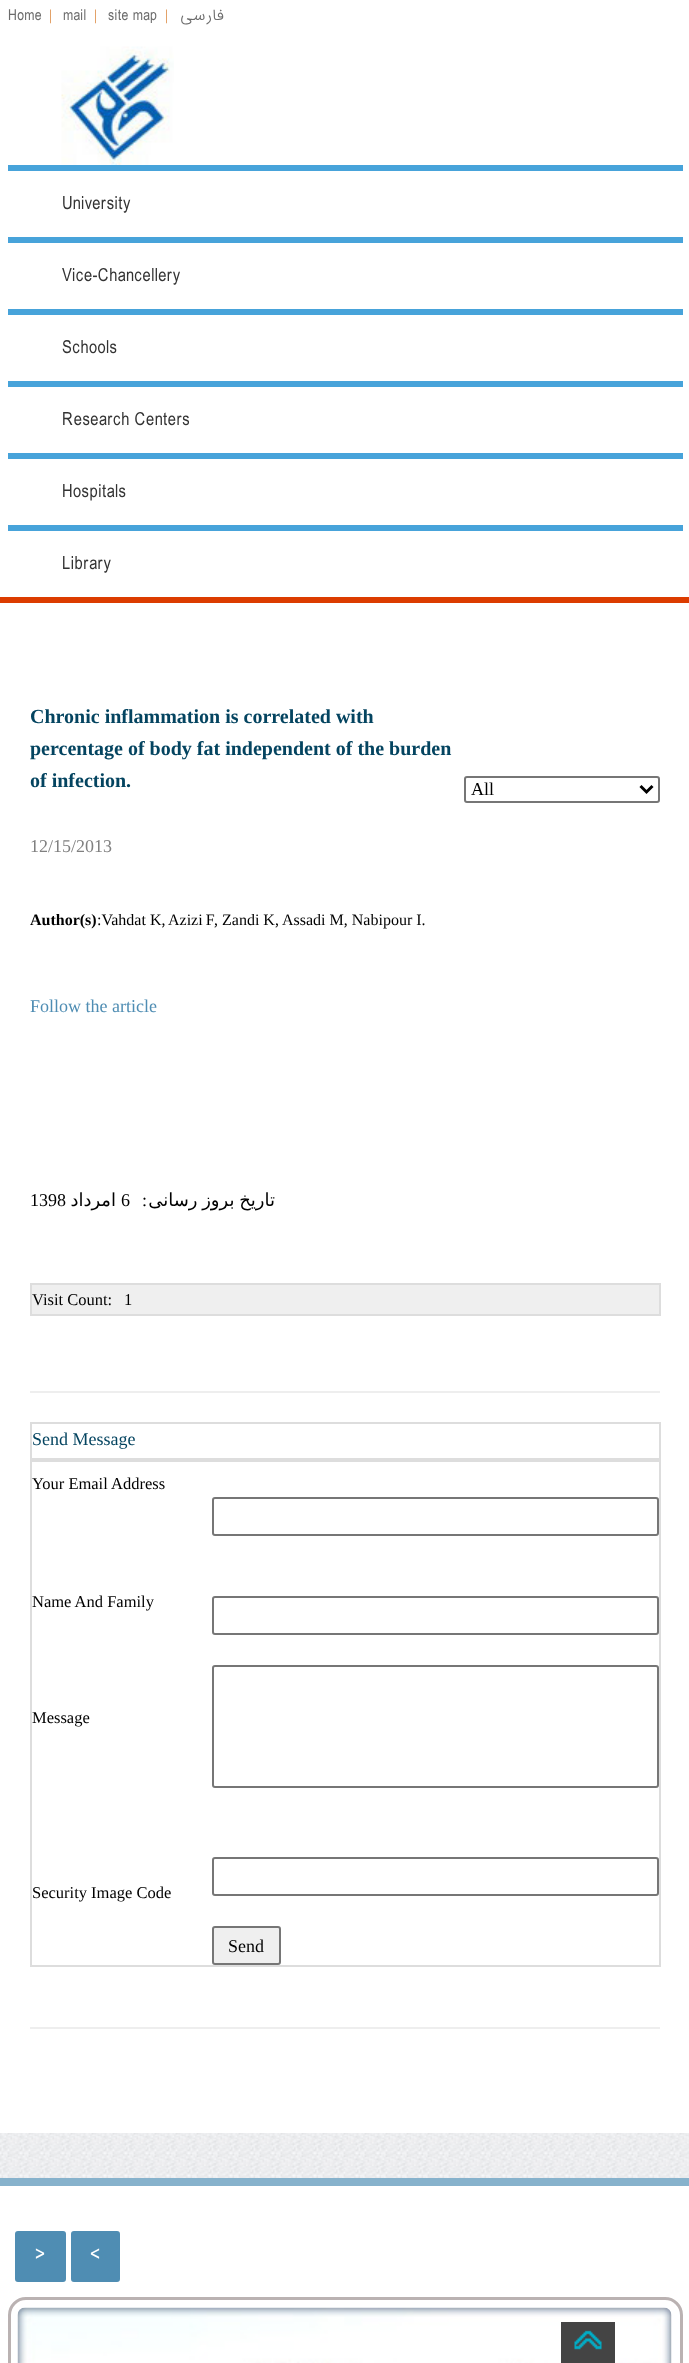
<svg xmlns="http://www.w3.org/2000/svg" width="689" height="2363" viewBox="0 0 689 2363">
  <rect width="100%" height="100%" fill="#ffffff"/>
  <image x="0" y="2133" width="689" height="45" href="img1.png"/>
  <rect x="0" y="597" width="689" height="6" fill="#dc3c00"/>
  <text x="8" y="20" font-family="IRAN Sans" font-size="15" font-weight="300" fill="#6c6c6c">Home</text>
  <text x="49" y="20" font-family="Liberation Serif" font-size="15" fill="#db873d">|</text>
  <text x="63" y="20" font-family="IRAN Sans" font-size="15" font-weight="300" fill="#6c6c6c">mail</text>
  <text x="94" y="20" font-family="Liberation Serif" font-size="15" fill="#db873d">|</text>
  <text x="108" y="20" font-family="IRAN Sans" font-size="15" font-weight="300" fill="#6c6c6c">site map</text>
  <text x="165" y="20" font-family="Liberation Serif" font-size="15" fill="#db873d">|</text>
  <text x="224" y="20" font-family="IRAN Sans" font-size="15" font-weight="300" direction="rtl" fill="#6c6c6c">فارسی</text>
  <rect x="8" y="165" width="675" height="6" fill="#47a3da"/>
  <image x="61" y="46" width="113" height="119" href="img2.png"/>
  <rect x="8" y="237" width="675" height="6" fill="#47a3da"/>
  <text x="62" y="209" font-family="IRAN Sans" font-size="18" font-weight="300" fill="#333333">University</text>
  <rect x="8" y="309" width="675" height="6" fill="#47a3da"/>
  <text x="62" y="281" font-family="IRAN Sans" font-size="18" font-weight="300" fill="#333333">Vice-Chancellery</text>
  <rect x="8" y="381" width="675" height="6" fill="#47a3da"/>
  <text x="62" y="353" font-family="IRAN Sans" font-size="18" font-weight="300" fill="#333333">Schools</text>
  <rect x="8" y="453" width="675" height="6" fill="#47a3da"/>
  <text x="62" y="425" font-family="IRAN Sans" font-size="18" font-weight="300" fill="#333333">Research Centers</text>
  <rect x="8" y="525" width="675" height="6" fill="#47a3da"/>
  <text x="62" y="497" font-family="IRAN Sans" font-size="18" font-weight="300" fill="#333333">Hospitals</text>
  <text x="62" y="569" font-family="IRAN Sans" font-size="18" font-weight="300" fill="#333333">Library</text>
  <text x="30" y="723" font-family="Liberation Serif" font-size="20" font-weight="bold" fill="#044460">Chronic inflammation is correlated with</text>
  <text x="30" y="755" font-family="Liberation Serif" font-size="20" font-weight="bold" fill="#044460">percentage of body fat independent of the burden</text>
  <text x="30" y="787" font-family="Liberation Serif" font-size="20" font-weight="bold" fill="#044460">of infection.</text>
  <rect x="465" y="777" width="194" height="25" rx="2" fill="none" stroke="#767676" stroke-width="2"/>
  <path d="M640.5 786L646.5 792L652.5 786" fill="none" stroke="#000000" stroke-width="3"/>
  <text x="471" y="795" font-family="Liberation Serif" font-size="18" fill="#000000">All</text>
  <text x="30" y="852" font-family="Liberation Serif" font-size="18" fill="#808080">12/15/2013</text>
  <text x="30" y="925" font-family="Liberation Serif" font-size="16" font-weight="bold" fill="#000000">Author(s)</text>
  <text x="97" y="925" font-family="Liberation Serif" font-size="16" fill="#000000">:Vahdat K,</text>
  <text x="168" y="925" word-spacing="-1" font-family="Liberation Serif" font-size="16" fill="#000000">Azizi F</text>
  <text x="214" y="925" font-family="Liberation Serif" font-size="16" fill="#000000">, Zandi K,</text>
  <text x="282" y="925" font-family="Liberation Serif" font-size="16" fill="#000000">Assadi M, Nabipour I.</text>
  <text x="30" y="1012" font-family="Liberation Serif" font-size="18" fill="#4f8db3">Follow the article</text>
  <text x="30" y="1206" font-family="Liberation Serif" font-size="18" fill="#000000">1398</text>
  <text x="116" y="1206" font-family="DejaVu Sans" font-size="18" direction="rtl" fill="#000000">امرداد</text>
  <text x="121" y="1206" font-family="Liberation Serif" font-size="18" fill="#000000">6</text>
  <text x="147" y="1206" font-family="Liberation Serif" font-size="18" direction="rtl" fill="#000000">:</text>
  <text x="275" y="1206" word-spacing="-1" font-family="DejaVu Sans" font-size="18" direction="rtl" fill="#000000">تاریخ بروز رسانی</text>
  <rect x="30" y="1283" width="630" height="2" fill="#dddddd"/>
  <rect x="659" y="1283" width="2" height="33" fill="#dddddd"/>
  <rect x="30" y="1314" width="630" height="2" fill="#dddddd"/>
  <rect x="30" y="1283" width="2" height="33" fill="#dddddd"/>
  <rect x="32" y="1285" width="627" height="29" fill="#efefef"/>
  <text x="32" y="1305" font-family="Liberation Serif" font-size="16.5" fill="#000000">Visit Count:</text>
  <text x="124" y="1305" font-family="Liberation Serif" font-size="16.5" fill="#000000">1</text>
  <rect x="30" y="1391" width="630" height="2" fill="#eeeeee"/>
  <rect x="30" y="1422" width="630" height="2" fill="#dddddd"/>
  <rect x="659" y="1422" width="2" height="38" fill="#dddddd"/>
  <rect x="30" y="1458" width="630" height="4" fill="#dddddd"/>
  <rect x="30" y="1422" width="2" height="38" fill="#dddddd"/>
  <text x="32" y="1445" font-family="Liberation Serif" font-size="18" fill="#044460">Send Message</text>
  <rect x="659" y="1460" width="2" height="507" fill="#dddddd"/>
  <rect x="30" y="1965" width="630" height="2" fill="#dddddd"/>
  <rect x="30" y="1460" width="2" height="507" fill="#dddddd"/>
  <text x="32" y="1489" font-family="Liberation Serif" font-size="16.5" fill="#000000">Your Email Address</text>
  <rect x="213" y="1498" width="445" height="37" rx="2" fill="none" stroke="#767676" stroke-width="2"/>
  <text x="32" y="1607" font-family="Liberation Serif" font-size="16.5" fill="#000000">Name And Family</text>
  <rect x="213" y="1597" width="445" height="37" rx="2" fill="none" stroke="#767676" stroke-width="2"/>
  <text x="32" y="1723" font-family="Liberation Serif" font-size="16.5" fill="#000000">Message</text>
  <rect x="213" y="1666" width="445" height="121" rx="2" fill="none" stroke="#767676" stroke-width="2"/>
  <text x="32" y="1898" font-family="Liberation Serif" font-size="16.5" fill="#000000">Security Image Code</text>
  <rect x="213" y="1858" width="445" height="37" rx="2" fill="none" stroke="#767676" stroke-width="2"/>
  <rect x="213" y="1927" width="67" height="37" rx="2" fill="#efefef" stroke="#767676" stroke-width="2"/>
  <text x="228" y="1952" font-family="Liberation Serif" font-size="18" fill="#000000">Send</text>
  <rect x="30" y="2027" width="630" height="2" fill="#eeeeee"/>
  <rect x="0" y="2178" width="689" height="8" fill="#87b2cc"/>
  <rect x="16" y="2232" width="49" height="49" rx="2" fill="#4f8db3" stroke="#4f8db3" stroke-width="2"/>
  <text x="35" y="2261" font-family="IRAN Sans" font-size="21" font-weight="300" fill="#ffffff">&gt;</text>
  <rect x="72" y="2232" width="47" height="49" rx="2" fill="#4f8db3" stroke="#4f8db3" stroke-width="2"/>
  <text x="90" y="2261" font-family="IRAN Sans" font-size="21" font-weight="300" fill="#ffffff">&lt;</text>
  <rect x="9.5" y="2298.5" width="672" height="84" rx="16.5" fill="none" stroke="#bab2b2" stroke-width="3"/>
  <image x="17" y="2307" width="655" height="56" href="img3.png"/>
  <rect x="561" y="2322" width="54" height="41" fill="#444444"/>
  <image x="574" y="2330" width="28" height="20" href="img4.png"/>
</svg>
